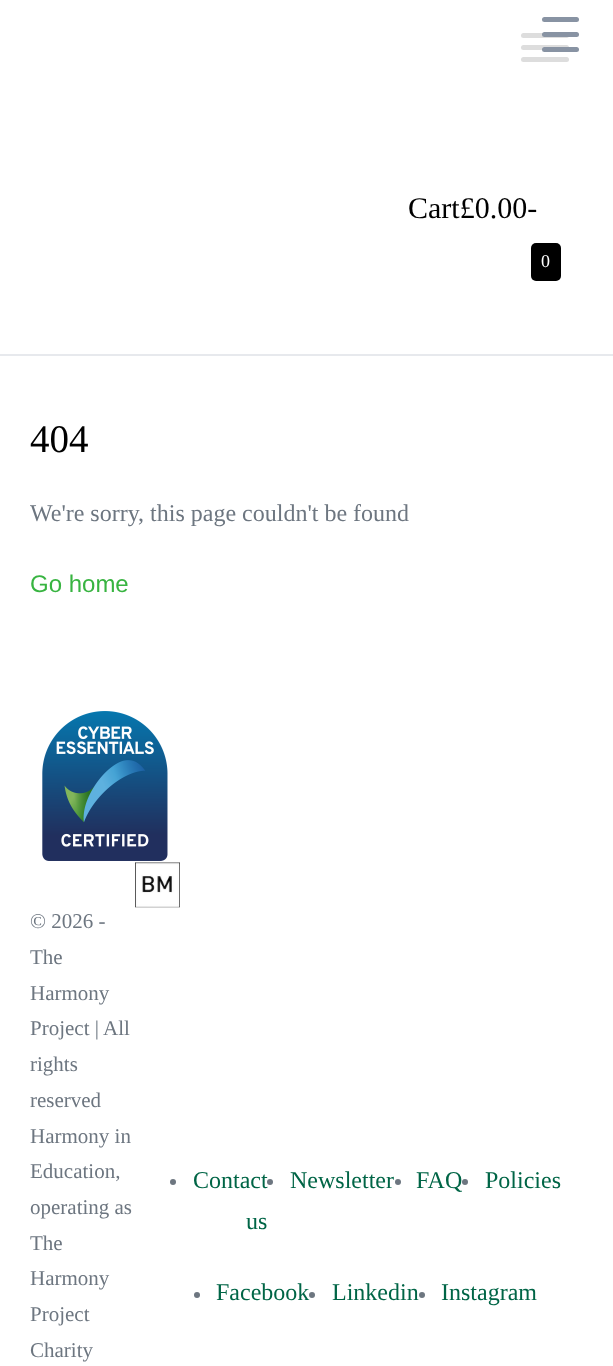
<svg xmlns="http://www.w3.org/2000/svg" width="613" height="1366" viewBox="0 0 613 1366">
  <rect width="100%" height="100%" fill="#ffffff"/>
  <rect x="521" y="33" width="48" height="5" rx="2.5" fill="#dddddd"/>
  <rect x="542" y="32" width="37" height="5" rx="2.5" fill="#8893a3"/>
  <rect x="542" y="17" width="37" height="5" rx="2.5" fill="#8893a3"/>
  <rect x="521" y="45" width="48" height="5" rx="2.5" fill="#dddddd"/>
  <rect x="542" y="47" width="37" height="5" rx="2.5" fill="#8893a3"/>
  <rect x="0" y="354" width="613" height="2" fill="#e7e9ed"/>
  <rect x="521" y="57" width="48" height="5" rx="2.5" fill="#dddddd"/>
  <text x="408" y="218" font-family="Liberation Serif" font-size="30" fill="#000000">Cart£0.00-</text>
  <rect x="531" y="243" width="30" height="38" rx="5" fill="#000000"/>
  <text x="541" y="267" font-family="Liberation Serif" font-size="18" fill="#ffffff">0</text>
  <text x="30" y="452" font-family="Liberation Serif" font-size="39" fill="#000000">404</text>
  <text x="30" y="521" font-family="Liberation Serif" font-size="24" fill="#6d7680">We're sorry, this page couldn't be found</text>
  <text x="30" y="592" font-family="Liberation Sans" font-size="24" fill="#38b441">Go home</text>
  <image x="42" y="711" width="138" height="197" href="img1.png"/>
  <text x="30" y="928" font-family="Liberation Serif" font-size="21" fill="#6d7680">© 2026 -</text>
  <text x="30" y="964" font-family="Liberation Serif" font-size="21" fill="#6d7680">The</text>
  <text x="30" y="1000" font-family="Liberation Serif" font-size="21" fill="#6d7680">Harmony</text>
  <text x="30" y="1035" font-family="Liberation Serif" font-size="21" fill="#6d7680">Project | All</text>
  <text x="30" y="1071" font-family="Liberation Serif" font-size="21" fill="#6d7680">rights</text>
  <text x="30" y="1107" font-family="Liberation Serif" font-size="21" fill="#6d7680">reserved</text>
  <text x="30" y="1143" font-family="Liberation Serif" font-size="21" fill="#6d7680">Harmony in</text>
  <text x="30" y="1178" font-family="Liberation Serif" font-size="21" fill="#6d7680">Education,</text>
  <text x="30" y="1214" font-family="Liberation Serif" font-size="21" fill="#6d7680">operating as</text>
  <text x="30" y="1250" font-family="Liberation Serif" font-size="21" fill="#6d7680">The</text>
  <text x="30" y="1285" font-family="Liberation Serif" font-size="21" fill="#6d7680">Harmony</text>
  <text x="30" y="1321" font-family="Liberation Serif" font-size="21" fill="#6d7680">Project</text>
  <text x="30" y="1357" font-family="Liberation Serif" font-size="21" fill="#6d7680">Charity</text>
  <circle cx="173" cy="1182" r="3" fill="#6d7680"/>
  <text x="193" y="1188" font-family="Liberation Serif" font-size="24" fill="#006546">Contact</text>
  <text x="246" y="1229" font-family="Liberation Serif" font-size="24" fill="#006546">us</text>
  <circle cx="270" cy="1182" r="3" fill="#6d7680"/>
  <text x="290" y="1188" font-family="Liberation Serif" font-size="24" fill="#006546">Newsletter</text>
  <circle cx="398" cy="1182" r="3" fill="#6d7680"/>
  <text x="416" y="1188" font-family="Liberation Serif" font-size="24" fill="#006546">FAQ</text>
  <circle cx="465" cy="1182" r="3" fill="#6d7680"/>
  <text x="485" y="1188" font-family="Liberation Serif" font-size="24" fill="#006546">Policies</text>
  <circle cx="197" cy="1295" r="3" fill="#6d7680"/>
  <text x="216" y="1300" font-family="Liberation Serif" font-size="24" fill="#006546">Facebook</text>
  <circle cx="312" cy="1295" r="3" fill="#6d7680"/>
  <text x="332" y="1300" font-family="Liberation Serif" font-size="24" fill="#006546">Linkedin</text>
  <circle cx="422" cy="1295" r="3" fill="#6d7680"/>
  <text x="441" y="1300" font-family="Liberation Serif" font-size="24" fill="#006546">Instagram</text>
</svg>
